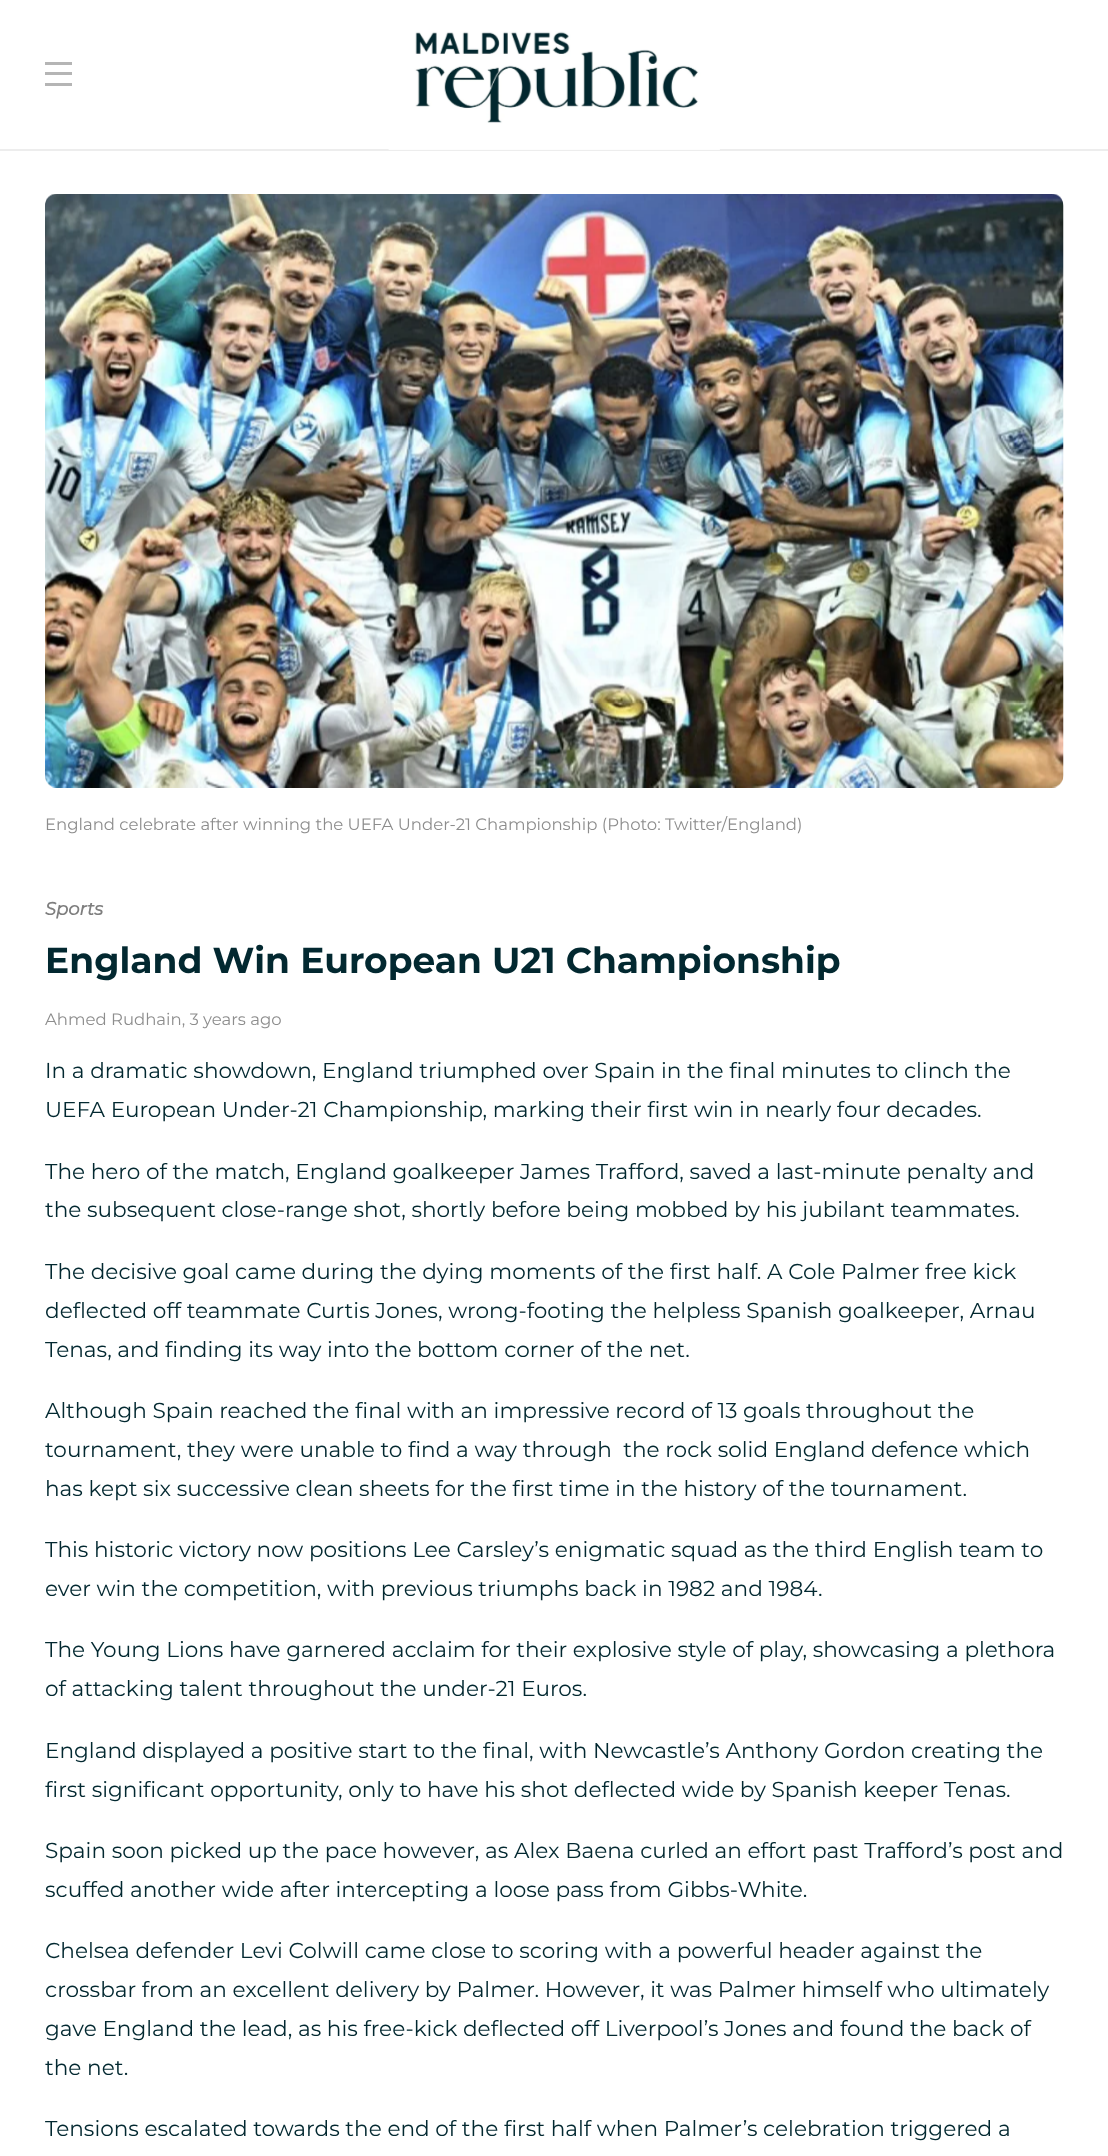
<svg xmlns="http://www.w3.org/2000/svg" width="1108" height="2156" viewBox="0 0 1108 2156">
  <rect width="100%" height="100%" fill="#ffffff"/>
  <rect x="0" y="149" width="1108" height="2" fill="#ededed"/>
  <rect x="45" y="62" width="27" height="3" fill="#b5b5b5"/>
  <rect x="45" y="72" width="27" height="3" fill="#b5b5b5"/>
  <rect x="45" y="83" width="27" height="3" fill="#b5b5b5"/>
  <image x="388" y="31" width="332" height="119" href="img1.png"/>
  <image x="45" y="194" width="1019" height="594" href="img2.png"/>
  <text x="45" y="830" font-family="Montserrat" font-size="16.5" font-weight="100" fill="#8d8d8d">England celebrate after winning the UEFA Under-21 Championship (Photo: Twitter/England)</text>
  <text x="45" y="915" font-family="Montserrat" font-size="18" font-weight="bold" font-style="italic" fill="#7e7e7e">Sports</text>
  <text x="45" y="973" font-family="Montserrat" font-size="36" font-weight="bold" fill="#022830">England Win European U21 Championship</text>
  <text x="45" y="1025" font-family="Montserrat" font-size="16.5" font-weight="100" fill="#8d8d8d">Ahmed Rudhain, 3 years ago</text>
  <text x="45" y="1078" font-family="Montserrat" font-size="21.6" font-weight="100" fill="#022830">In a dramatic showdown, England triumphed over Spain in the final minutes to clinch the</text>
  <text x="45" y="1117" font-family="Montserrat" font-size="21.6" font-weight="100" fill="#022830">UEFA European Under-21 Championship, marking their first win in nearly four decades.</text>
  <text x="45" y="1179" font-family="Montserrat" font-size="21.6" font-weight="100" fill="#022830">The hero of the match, England goalkeeper James Trafford, saved a last-minute penalty and</text>
  <text x="45" y="1217" font-family="Montserrat" font-size="21.6" font-weight="100" fill="#022830">the subsequent close-range shot, shortly before being mobbed by his jubilant teammates.</text>
  <text x="45" y="1279" font-family="Montserrat" font-size="21.6" font-weight="100" fill="#022830">The decisive goal came during the dying moments of the first half. A Cole Palmer free kick</text>
  <text x="45" y="1318" font-family="Montserrat" font-size="21.6" font-weight="100" fill="#022830">deflected off teammate Curtis Jones, wrong-footing the helpless Spanish goalkeeper, Arnau</text>
  <text x="45" y="1357" font-family="Montserrat" font-size="21.6" font-weight="100" fill="#022830">Tenas, and finding its way into the bottom corner of the net.</text>
  <text x="45" y="1418" font-family="Montserrat" font-size="21.6" font-weight="100" fill="#022830">Although Spain reached the final with an impressive record of 13 goals throughout the</text>
  <text x="45" y="1457" font-family="Montserrat" font-size="21.6" font-weight="100" fill="#022830" xml:space="preserve">tournament, they were unable to find a way through  the rock solid England defence which</text>
  <text x="45" y="1496" font-family="Montserrat" font-size="21.6" font-weight="100" fill="#022830">has kept six successive clean sheets for the first time in the history of the tournament.</text>
  <text x="45" y="1557" font-family="Montserrat" font-size="21.6" font-weight="100" fill="#022830">This historic victory now positions Lee Carsley’s enigmatic squad as the third English team to</text>
  <text x="45" y="1596" font-family="Montserrat" font-size="21.6" font-weight="100" fill="#022830">ever win the competition, with previous triumphs back in 1982 and 1984.</text>
  <text x="45" y="1657" font-family="Montserrat" font-size="21.6" font-weight="100" fill="#022830">The Young Lions have garnered acclaim for their explosive style of play, showcasing a plethora</text>
  <text x="45" y="1696" font-family="Montserrat" font-size="21.6" font-weight="100" fill="#022830">of attacking talent throughout the under-21 Euros.</text>
  <text x="45" y="1758" font-family="Montserrat" font-size="21.6" font-weight="100" fill="#022830">England displayed a positive start to the final, with Newcastle’s Anthony Gordon creating the</text>
  <text x="45" y="1797" font-family="Montserrat" font-size="21.6" font-weight="100" fill="#022830">first significant opportunity, only to have his shot deflected wide by Spanish keeper Tenas.</text>
  <text x="45" y="1858" font-family="Montserrat" font-size="21.6" font-weight="100" fill="#022830">Spain soon picked up the pace however, as Alex Baena curled an effort past Trafford’s post and</text>
  <text x="45" y="1897" font-family="Montserrat" font-size="21.6" font-weight="100" fill="#022830">scuffed another wide after intercepting a loose pass from Gibbs-White.</text>
  <text x="45" y="1958" font-family="Montserrat" font-size="21.6" font-weight="100" fill="#022830">Chelsea defender Levi Colwill came close to scoring with a powerful header against the</text>
  <text x="45" y="1997" font-family="Montserrat" font-size="21.6" font-weight="100" fill="#022830">crossbar from an excellent delivery by Palmer. However, it was Palmer himself who ultimately</text>
  <text x="45" y="2036" font-family="Montserrat" font-size="21.6" font-weight="100" fill="#022830">gave England the lead, as his free-kick deflected off Liverpool’s Jones and found the back of</text>
  <text x="45" y="2075" font-family="Montserrat" font-size="21.6" font-weight="100" fill="#022830">the net.</text>
  <text x="45" y="2136" font-family="Montserrat" font-size="21.6" font-weight="100" fill="#022830">Tensions escalated towards the end of the first half when Palmer’s celebration triggered a</text>
</svg>
